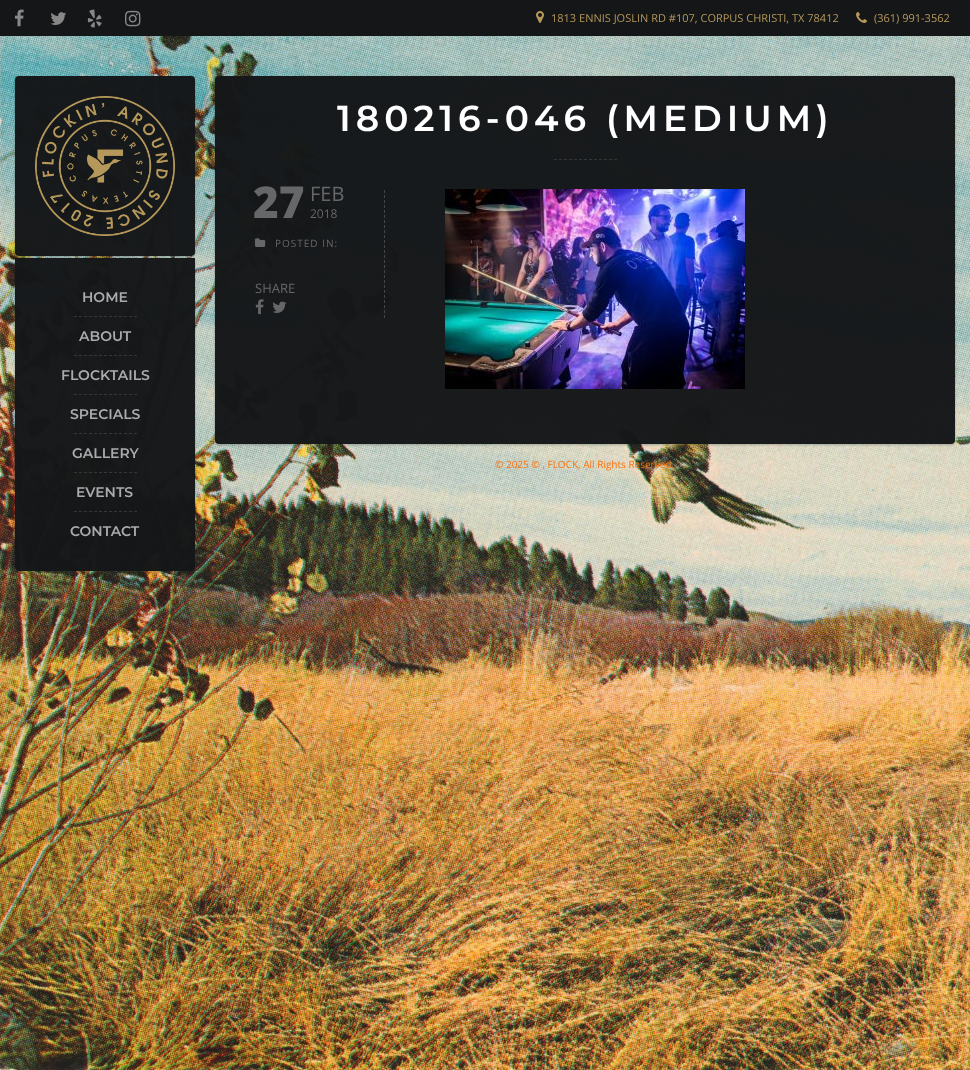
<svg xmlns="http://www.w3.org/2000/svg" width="970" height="1070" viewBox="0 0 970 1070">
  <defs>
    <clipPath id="clip1"><path d="M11 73H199V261H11ZM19 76H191C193 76 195 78 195 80V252C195 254 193 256 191 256H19C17 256 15 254 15 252V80C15 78 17 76 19 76Z" clip-rule="evenodd"/></clipPath>
    <filter id="blur1" x="-50%" y="-200%" width="200%" height="500%"><feGaussianBlur stdDeviation="1"/></filter>
    <clipPath id="clip2"><path d="M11 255H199V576H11ZM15 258H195V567C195 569 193 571 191 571H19C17 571 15 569 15 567Z" clip-rule="evenodd"/></clipPath>
    <clipPath id="clip3"><path d="M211 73H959V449H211ZM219 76H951C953 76 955 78 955 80V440C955 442 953 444 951 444H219C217 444 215 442 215 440V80C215 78 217 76 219 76Z" clip-rule="evenodd"/></clipPath>
  </defs>
  <rect width="100%" height="100%" fill="#ffffff"/>
  <image x="0" y="36" width="970" height="1034" href="img1.png"/>
  <rect x="0" y="0" width="970" height="36" fill="#141618"/>
  <image x="14" y="9" width="10" height="18" href="img2.png"/>
  <image x="50" y="12" width="17" height="13" href="img3.png"/>
  <image x="87" y="9" width="15" height="19" href="img4.png"/>
  <image x="125" y="10" width="16" height="17" href="img5.png"/>
  <image x="536" y="11" width="8" height="12" href="img6.png"/>
  <text x="551" y="22" font-family="Open Sans" font-size="11" fill="#b5985a">1813 ENNIS JOSLIN RD #107, CORPUS CHRISTI, TX 78412</text>
  <image x="856" y="12" width="11" height="11" href="img7.png"/>
  <text x="874" y="22" font-family="Open Sans" font-size="11" fill="#b5985a">(361) 991-3562</text>
  <g clip-path="url(#clip1)">
    <rect x="15" y="77" width="180" height="180" rx="4" fill="#0a1414" fill-opacity="0.28" filter="url(#blur1)"/>
  </g>
  <rect x="15" y="76" width="180" height="180" rx="4" fill="#141618" fill-opacity="0.98"/>
  <image x="35" y="96" width="140" height="140" href="img8.png"/>
  <g clip-path="url(#clip2)">
    <rect x="15" y="259" width="180" height="313" rx="4" fill="#0a1414" fill-opacity="0.28" filter="url(#blur1)"/>
  </g>
  <path d="M15 258H195V567C195 569 193 571 191 571H19C17 571 15 569 15 567Z" fill="#141618" fill-opacity="0.98"/>
  <text x="82" y="302" font-family="Montserrat" font-size="14" font-weight="600" fill="#aaabac">HOME</text>
  <path d="M74 316.5H137" fill="none" stroke="#343638" stroke-dasharray="3 2"/>
  <text x="79" y="341" font-family="Montserrat" font-size="14" font-weight="600" fill="#aaabac">ABOUT</text>
  <path d="M74 355.5H137" fill="none" stroke="#343638" stroke-dasharray="3 2"/>
  <text x="61" y="380" font-family="Montserrat" font-size="14" font-weight="600" fill="#aaabac">FLOCKTAILS</text>
  <path d="M74 394.5H137" fill="none" stroke="#343638" stroke-dasharray="3 2"/>
  <text x="70" y="419" font-family="Montserrat" font-size="14" font-weight="600" fill="#aaabac">SPECIALS</text>
  <path d="M74 433.5H137" fill="none" stroke="#343638" stroke-dasharray="3 2"/>
  <text x="72" y="458" font-family="Montserrat" font-size="14" font-weight="600" fill="#aaabac">GALLERY</text>
  <path d="M74 472.5H137" fill="none" stroke="#343638" stroke-dasharray="3 2"/>
  <text x="76" y="497" font-family="Montserrat" font-size="14" font-weight="600" fill="#aaabac">EVENTS</text>
  <path d="M74 511.5H137" fill="none" stroke="#343638" stroke-dasharray="3 2"/>
  <text x="70" y="536" font-family="Montserrat" font-size="14" font-weight="600" fill="#aaabac">CONTACT</text>
  <g clip-path="url(#clip3)">
    <rect x="215" y="77" width="740" height="368" rx="4" fill="#0a1414" fill-opacity="0.28" filter="url(#blur1)"/>
  </g>
  <rect x="215" y="76" width="740" height="368" rx="4" fill="#141618" fill-opacity="0.98"/>
  <text x="337" y="131" font-family="Montserrat" font-size="36" font-weight="600" letter-spacing="5" fill="#ffffff">180216-046 (MEDIUM)</text>
  <path d="M554 159.5H617" fill="none" stroke="#343638" stroke-dasharray="3 2"/>
  <path d="M384.5 190V318" fill="none" stroke="#444648" stroke-dasharray="3 2"/>
  <text x="253" y="218" font-family="Open Sans" font-size="44" font-weight="800" fill="#666768">27</text>
  <text x="310" y="201" font-family="Open Sans" font-size="20" fill="#666768">FEB</text>
  <text x="310" y="218" font-family="Open Sans" font-size="12" fill="#666768">2018</text>
  <image x="255" y="238" width="11" height="9" href="img9.png"/>
  <text x="275" y="247" font-family="Open Sans" font-size="10" letter-spacing="1" fill="#666768">POSTED IN:</text>
  <text x="255" y="293" font-family="Open Sans" font-size="13" fill="#666768">SHARE</text>
  <image x="255" y="299" width="9" height="16" href="img10.png"/>
  <image x="272" y="301" width="15" height="12" href="img11.png"/>
  <image x="445" y="189" width="300" height="200" href="img12.png"/>
  <text x="495" y="468" font-family="Open Sans" font-size="10" fill="#fa720a">© 2025 © , FLOCK, All Rights Reserved.</text>
</svg>
